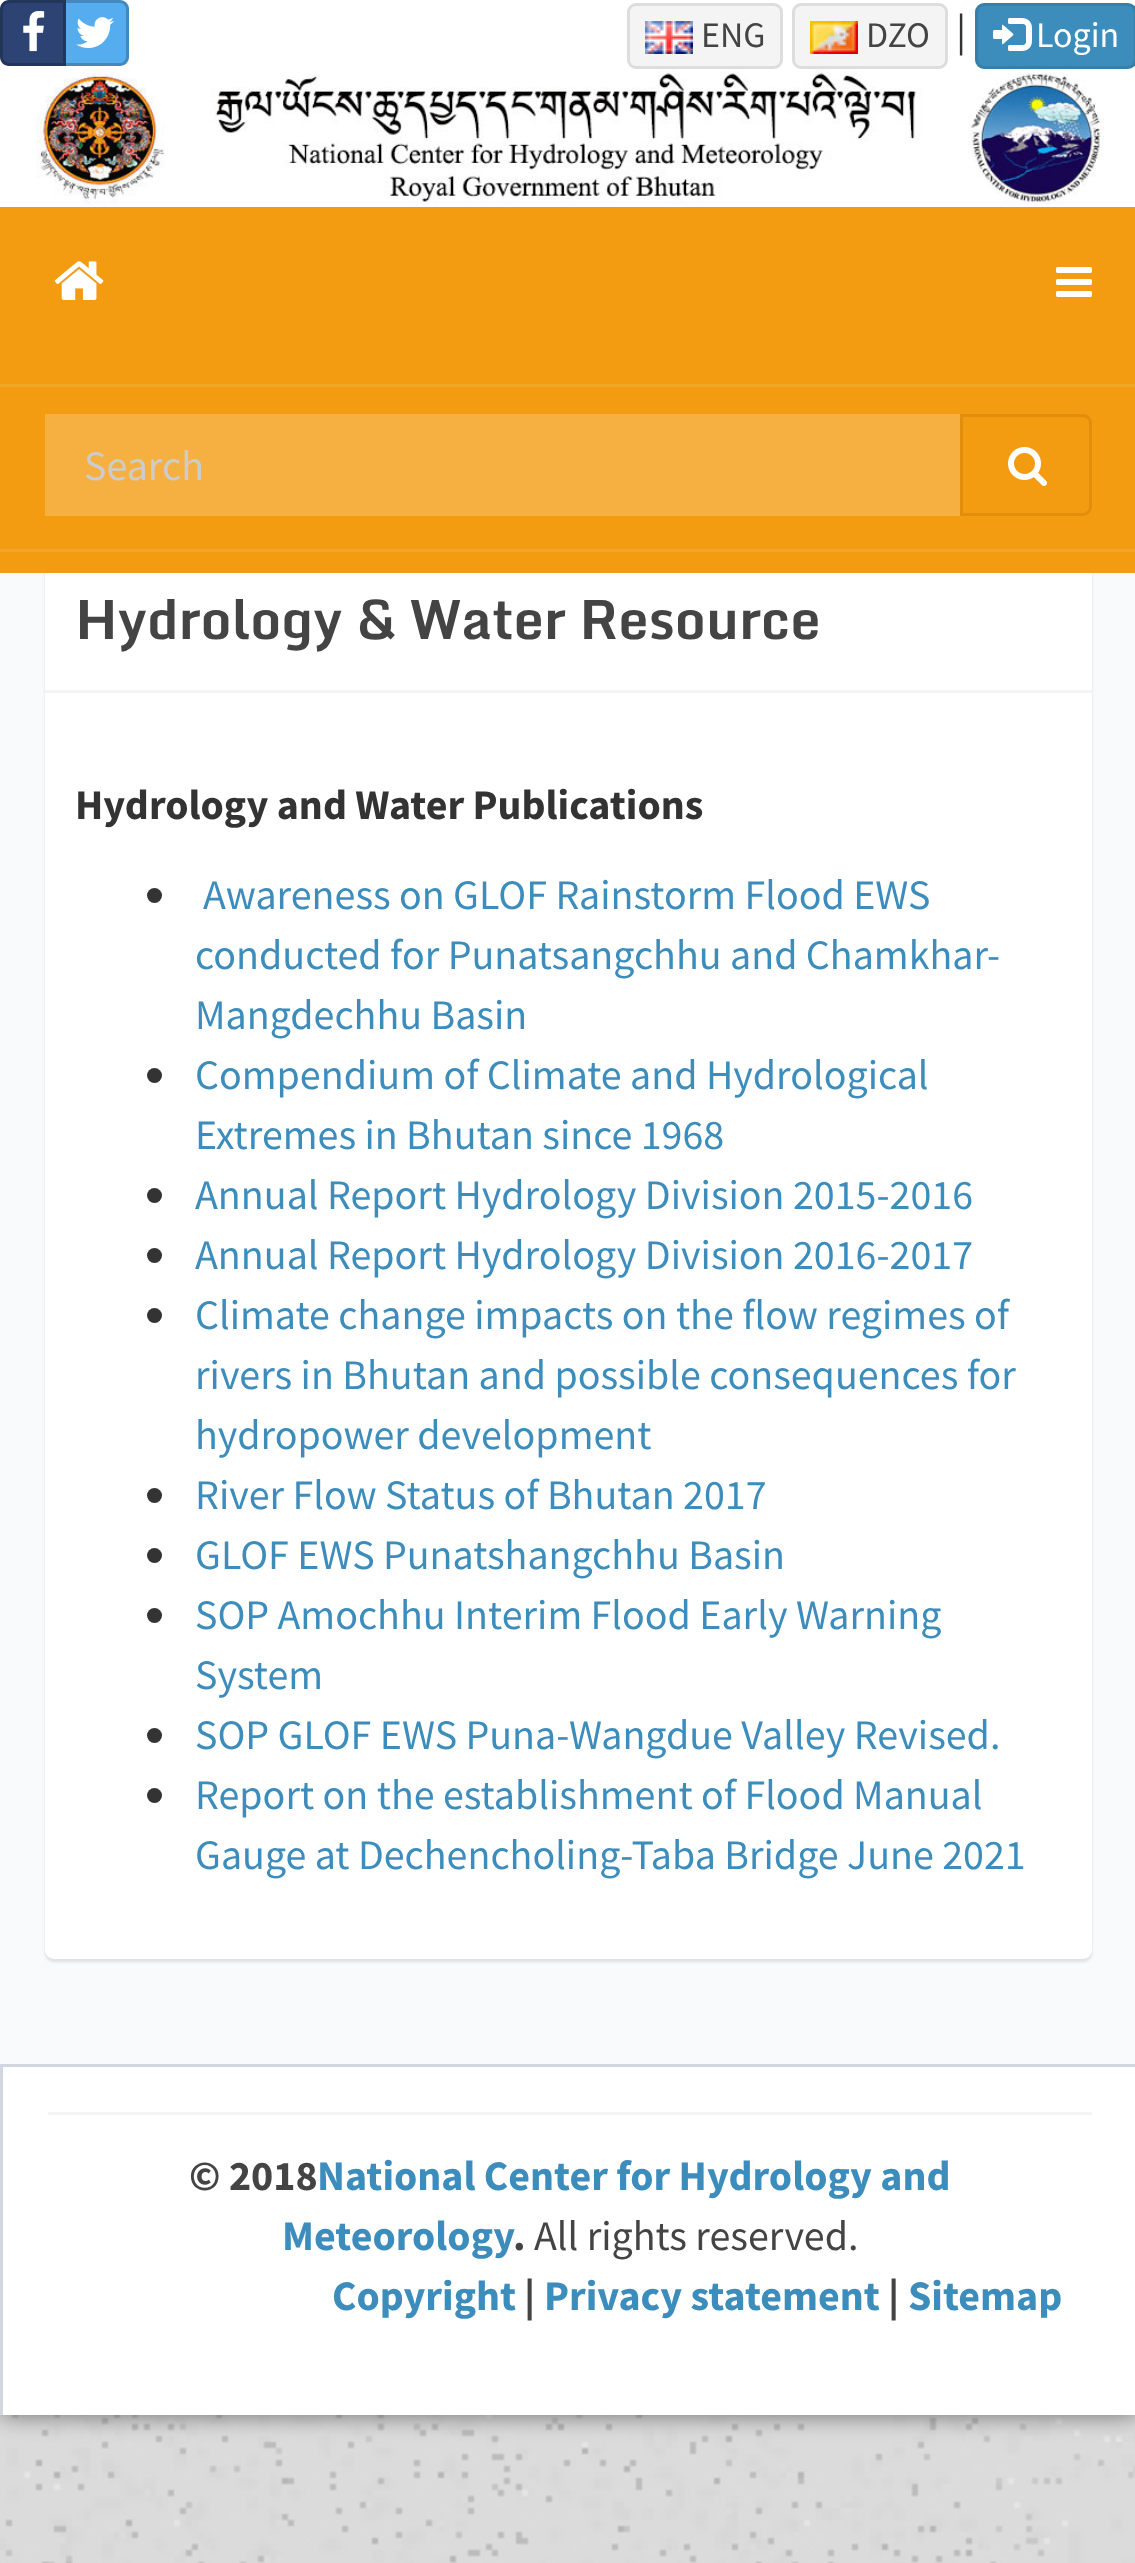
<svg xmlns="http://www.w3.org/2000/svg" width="1135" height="2563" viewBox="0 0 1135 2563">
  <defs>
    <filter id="blur1" x="-50%" y="-200%" width="200%" height="500%"><feGaussianBlur stdDeviation="12"/></filter>
    <filter id="blur2" x="-50%" y="-200%" width="200%" height="500%"><feGaussianBlur stdDeviation="1.5"/></filter>
  </defs>
  <rect width="100%" height="100%" fill="#ffffff"/>
  <image x="0" y="2415" width="1135" height="148" href="img1.png"/>
  <rect x="0" y="0" width="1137" height="2415" fill="#000000" fill-opacity="0.5" filter="url(#blur1)"/>
  <rect x="0" y="573" width="1135" height="1491" fill="#f9fafc"/>
  <rect x="0" y="0" width="1135" height="207" fill="#ffffff"/>
  <image x="36" y="69" width="1068" height="136" href="img2.png"/>
  <path d="M63 0H120C125 0 129 4 129 9V57C129 62 125 66 120 66H63Z" fill="#55acee"/>
  <path d="M64.5 1.5H120C124 1.5 127.5 5 127.5 9V57C127.5 61 124 64.5 120 64.5H64.5Z" fill="none" stroke="#000000" stroke-opacity="0.2" stroke-width="3"/>
  <path d="M9 0H66V66H9C4 66 0 62 0 57V9C0 4 4 0 9 0Z" fill="#2d4373"/>
  <path d="M9 1.5H64.5V64.5H9C5 64.5 1.5 61 1.5 57V9C1.5 5 5 1.5 9 1.5Z" fill="none" stroke="#000000" stroke-opacity="0.2" stroke-width="3"/>
  <image x="23" y="11" width="22" height="41" href="img3.png"/>
  <image x="76" y="17" width="38" height="31" href="img4.png"/>
  <rect x="628.5" y="4.5" width="153" height="63" rx="7.5" fill="#f4f4f4" stroke="#dddddd" stroke-width="3"/>
  <image x="645" y="21" width="48" height="33" href="img5.png"/>
  <text x="701" y="47" font-family="Source Sans Pro" font-size="36" fill="#444444">ENG</text>
  <rect x="793.5" y="4.5" width="153" height="63" rx="7.5" fill="#f4f4f4" stroke="#dddddd" stroke-width="3"/>
  <image x="810" y="21" width="48" height="33" href="img6.png"/>
  <text x="866" y="47" font-family="Source Sans Pro" font-size="36" fill="#444444">DZO</text>
  <text x="956" y="45" font-family="Source Sans Pro" font-size="42" fill="#333333">|</text>
  <rect x="976.5" y="4.5" width="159" height="63" rx="7.5" fill="#3c8dbc" stroke="#367fa9" stroke-width="3"/>
  <image x="993" y="18" width="39" height="33" href="img7.png"/>
  <text x="1036" y="47" font-family="Source Sans Pro" font-size="36" fill="#ffffff">Login</text>
  <rect x="45" y="555" width="1047" height="1407" rx="9" fill="#000000" fill-opacity="0.1" filter="url(#blur2)"/>
  <rect x="45" y="552" width="1047" height="1407" rx="9" fill="#ffffff"/>
  <rect x="0" y="207" width="1135" height="366" fill="#f39c12"/>
  <image x="54" y="261" width="50" height="39" href="img8.png"/>
  <image x="1056" y="267" width="36" height="30" href="img9.png"/>
  <rect x="0" y="549" width="1135" height="3" fill="#f4a62a"/>
  <rect x="0" y="384" width="1135" height="3" fill="#f4a62a"/>
  <rect x="45" y="414" width="915" height="102" fill="#f6b041"/>
  <text x="84" y="480" font-family="Source Sans Pro" font-size="42" fill="#cccccc">Search</text>
  <path d="M961.5 415.5H1083C1087 415.5 1090.5 419 1090.5 423V507C1090.5 511 1087 514.5 1083 514.5H961.5Z" fill="none" stroke="#e08e0b" stroke-width="3"/>
  <image x="1008" y="447" width="39" height="39" href="img10.png"/>
  <rect x="45" y="690" width="1047" height="3" fill="#f4f4f4"/>
  <text x="75" y="639" font-family="Monda" font-size="54" font-weight="bold" fill="#444444">Hydrology &amp; Water Resource</text>
  <text x="75" y="819" font-family="Source Sans Pro" font-size="42" font-weight="bold" fill="#333333">Hydrology and Water Publications</text>
  <circle cx="154.5" cy="895.5" r="7.5" fill="#333333"/>
  <text x="203" y="909" font-family="Source Sans Pro" font-size="42" fill="#3c8dbc">Awareness on GLOF Rainstorm Flood EWS</text>
  <text x="195" y="969" font-family="Source Sans Pro" font-size="42" fill="#3c8dbc">conducted for Punatsangchhu and Chamkhar-</text>
  <text x="195" y="1029" font-family="Source Sans Pro" font-size="42" fill="#3c8dbc">Mangdechhu Basin</text>
  <circle cx="154.5" cy="1075.5" r="7.5" fill="#333333"/>
  <text x="195" y="1089" font-family="Source Sans Pro" font-size="42" fill="#3c8dbc">Compendium of Climate and Hydrological</text>
  <text x="195" y="1149" font-family="Source Sans Pro" font-size="42" fill="#3c8dbc">Extremes in Bhutan since 1968</text>
  <circle cx="154.5" cy="1195.5" r="7.5" fill="#333333"/>
  <text x="195" y="1209" font-family="Source Sans Pro" font-size="42" fill="#3c8dbc">Annual Report Hydrology Division 2015-2016</text>
  <circle cx="154.5" cy="1255.5" r="7.5" fill="#333333"/>
  <text x="195" y="1269" font-family="Source Sans Pro" font-size="42" fill="#3c8dbc">Annual Report Hydrology Division 2016-2017</text>
  <circle cx="154.5" cy="1315.5" r="7.5" fill="#333333"/>
  <text x="195" y="1329" font-family="Source Sans Pro" font-size="42" fill="#3c8dbc">Climate change impacts on the flow regimes of</text>
  <text x="195" y="1389" font-family="Source Sans Pro" font-size="42" fill="#3c8dbc">rivers in Bhutan and possible consequences for</text>
  <text x="195" y="1449" font-family="Source Sans Pro" font-size="42" fill="#3c8dbc">hydropower development</text>
  <circle cx="154.5" cy="1495.5" r="7.5" fill="#333333"/>
  <text x="195" y="1509" font-family="Source Sans Pro" font-size="42" fill="#3c8dbc">River Flow Status of Bhutan 2017</text>
  <circle cx="154.5" cy="1555.5" r="7.5" fill="#333333"/>
  <text x="195" y="1569" font-family="Source Sans Pro" font-size="42" fill="#3c8dbc">GLOF EWS Punatshangchhu Basin</text>
  <circle cx="154.5" cy="1615.5" r="7.5" fill="#333333"/>
  <text x="195" y="1629" font-family="Source Sans Pro" font-size="42" fill="#3c8dbc">SOP Amochhu Interim Flood Early Warning</text>
  <text x="195" y="1689" font-family="Source Sans Pro" font-size="42" fill="#3c8dbc">System</text>
  <circle cx="154.5" cy="1735.5" r="7.5" fill="#333333"/>
  <text x="195" y="1749" font-family="Source Sans Pro" font-size="42" fill="#3c8dbc">SOP GLOF EWS Puna-Wangdue Valley Revised.</text>
  <circle cx="154.5" cy="1795.5" r="7.5" fill="#333333"/>
  <text x="195" y="1809" font-family="Source Sans Pro" font-size="42" fill="#3c8dbc">Report on the establishment of Flood Manual</text>
  <text x="195" y="1869" font-family="Source Sans Pro" font-size="42" fill="#3c8dbc">Gauge at Dechencholing-Taba Bridge June 2021</text>
  <rect x="3" y="2067" width="1132" height="348" fill="#ffffff"/>
  <rect x="0" y="2064" width="1135" height="3" fill="#d2d6de"/>
  <rect x="0" y="2064" width="3" height="351" fill="#d2d6de"/>
  <rect x="48" y="2112" width="1044" height="3" fill="#f4f4f4"/>
  <text x="189" y="2190" font-family="Source Sans Pro" font-size="42" font-weight="bold" fill="#444444">© 2018</text>
  <text x="317" y="2190" font-family="Source Sans Pro" font-size="42" font-weight="bold" fill="#3c8dbc">National Center for Hydrology and</text>
  <text x="282" y="2250" font-family="Source Sans Pro" font-size="42" font-weight="bold" fill="#3c8dbc">Meteorology</text>
  <text x="513" y="2250" font-family="Source Sans Pro" font-size="42" font-weight="bold" fill="#444444">.</text>
  <text x="534" y="2250" font-family="Source Sans Pro" font-size="42" fill="#444444">All rights reserved.</text>
  <text x="332" y="2310" font-family="Source Sans Pro" font-size="42" font-weight="bold" fill="#3c8dbc">Copyright</text>
  <text x="524" y="2310" font-family="Source Sans Pro" font-size="42" font-weight="bold" fill="#444444">|</text>
  <text x="544" y="2310" font-family="Source Sans Pro" font-size="42" font-weight="bold" fill="#3c8dbc">Privacy statement</text>
  <text x="888" y="2310" font-family="Source Sans Pro" font-size="42" font-weight="bold" fill="#444444">|</text>
  <text x="908" y="2310" font-family="Source Sans Pro" font-size="42" font-weight="bold" fill="#3c8dbc">Sitemap</text>
</svg>
